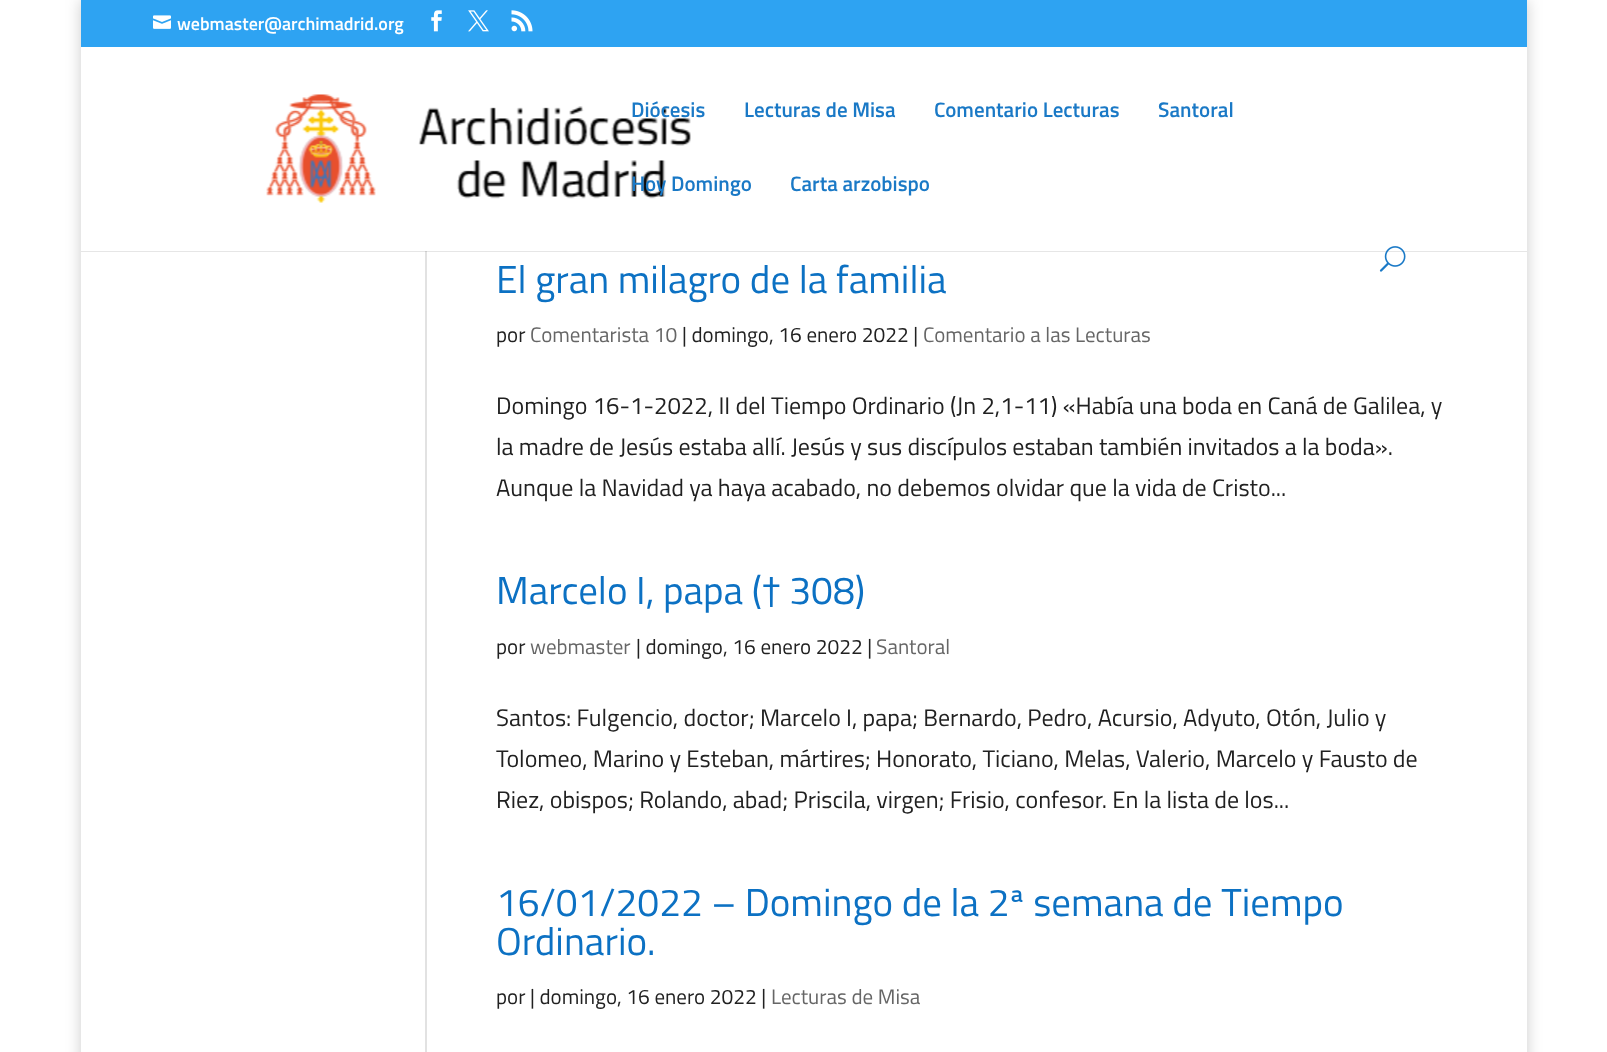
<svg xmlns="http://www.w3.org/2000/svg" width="1607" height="1052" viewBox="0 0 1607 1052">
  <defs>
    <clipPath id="clip1"><path d="M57 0H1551V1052H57ZM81 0H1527V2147H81Z" clip-rule="evenodd"/></clipPath>
    <filter id="blur1" x="-50%" y="-200%" width="200%" height="500%"><feGaussianBlur stdDeviation="7.5"/></filter>
  </defs>
  <rect width="100%" height="100%" fill="#ffffff"/>
  <rect x="81" y="251" width="1446" height="1" fill="#e6e6e6"/>
  <g clip-path="url(#clip1)">
    <rect x="81" y="0" width="1446" height="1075" fill="#000000" fill-opacity="0.2" filter="url(#blur1)"/>
  </g>
  <rect x="81" y="0" width="1446" height="47" fill="#2ea3f2"/>
  <image x="153" y="15" width="18" height="14" href="img1.png"/>
  <text x="177" y="30" font-family="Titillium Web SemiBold" font-size="18" font-weight="600" fill="#ffffff">webmaster@archimadrid.org</text>
  <image x="431" y="10" width="11" height="22" href="img2.png"/>
  <image x="468" y="10" width="21" height="22" href="img3.png"/>
  <image x="511" y="10" width="22" height="22" href="img4.png"/>
  <image x="266" y="94" width="425" height="109" href="img5.png"/>
  <text x="631" y="117" font-family="Titillium Web SemiBold" font-size="21" font-weight="600" fill="#1a79c6">Diócesis</text>
  <text x="744" y="117" font-family="Titillium Web SemiBold" font-size="21" font-weight="600" fill="#1a79c6">Lecturas de Misa</text>
  <text x="934" y="117" font-family="Titillium Web SemiBold" font-size="21" font-weight="600" fill="#1a79c6">Comentario Lecturas</text>
  <text x="1158" y="117" font-family="Titillium Web SemiBold" font-size="21" font-weight="600" fill="#1a79c6">Santoral</text>
  <text x="631" y="191" font-family="Titillium Web SemiBold" font-size="21" font-weight="600" fill="#1a79c6">Hoy Domingo</text>
  <text x="790" y="191" font-family="Titillium Web SemiBold" font-size="21" font-weight="600" fill="#1a79c6">Carta arzobispo</text>
  <image x="1379" y="246" width="27" height="26" href="img6.png"/>
  <rect x="425" y="252" width="2" height="800" fill="#e2e2e2"/>
  <rect x="425" y="251" width="2" height="1" fill="#cbcbcb"/>
  <text x="496" y="293" font-family="Titillium Web" font-size="39" fill="#0c71c3">El gran milagro de la familia</text>
  <text x="496" y="342" font-family="Titillium Web" font-size="21" fill="#212121">por</text>
  <text x="530" y="342" font-family="Titillium Web" font-size="21" fill="#666666">Comentarista 10</text>
  <text x="682" y="342" font-family="Titillium Web" font-size="21" fill="#212121">| domingo, 16 enero 2022 |</text>
  <text x="923" y="342" font-family="Titillium Web" font-size="21" fill="#666666">Comentario a las Lecturas</text>
  <text x="496" y="414" font-family="Titillium Web" font-size="24" fill="#212121">Domingo 16-1-2022, II del Tiempo Ordinario (Jn 2,1-11) «Había una boda en Caná de Galilea, y</text>
  <text x="496" y="455" font-family="Titillium Web" font-size="24" fill="#212121">la madre de Jesús estaba allí. Jesús y sus discípulos estaban también invitados a la boda».</text>
  <text x="496" y="496" font-family="Titillium Web" font-size="24" fill="#212121">Aunque la Navidad ya haya acabado, no debemos olvidar que la vida de Cristo...</text>
  <text x="496" y="604" font-family="Titillium Web" font-size="39" fill="#0c71c3">Marcelo I, papa († 308)</text>
  <text x="496" y="654" font-family="Titillium Web" font-size="21" fill="#212121">por</text>
  <text x="530" y="654" font-family="Titillium Web" font-size="21" fill="#666666">webmaster</text>
  <text x="636" y="654" font-family="Titillium Web" font-size="21" fill="#212121">| domingo, 16 enero 2022 |</text>
  <text x="876" y="654" font-family="Titillium Web" font-size="21" fill="#666666">Santoral</text>
  <text x="496" y="726" font-family="Titillium Web" font-size="24" fill="#212121">Santos: Fulgencio, doctor; Marcelo I, papa; Bernardo, Pedro, Acursio, Adyuto, Otón, Julio y</text>
  <text x="496" y="767" font-family="Titillium Web" font-size="24" fill="#212121">Tolomeo, Marino y Esteban, mártires; Honorato, Ticiano, Melas, Valerio, Marcelo y Fausto de</text>
  <text x="496" y="808" font-family="Titillium Web" font-size="24" fill="#212121">Riez, obispos; Rolando, abad; Priscila, virgen; Frisio, confesor. En la lista de los...</text>
  <text x="496" y="916" font-family="Titillium Web" font-size="39" fill="#0c71c3">16/01/2022 – Domingo de la 2ª semana de Tiempo</text>
  <text x="496" y="955" font-family="Titillium Web" font-size="39" fill="#0c71c3">Ordinario.</text>
  <text x="496" y="1004" font-family="Titillium Web" font-size="21" fill="#212121">por | domingo, 16 enero 2022 |</text>
  <text x="771" y="1004" font-family="Titillium Web" font-size="21" fill="#666666">Lecturas de Misa</text>
</svg>
